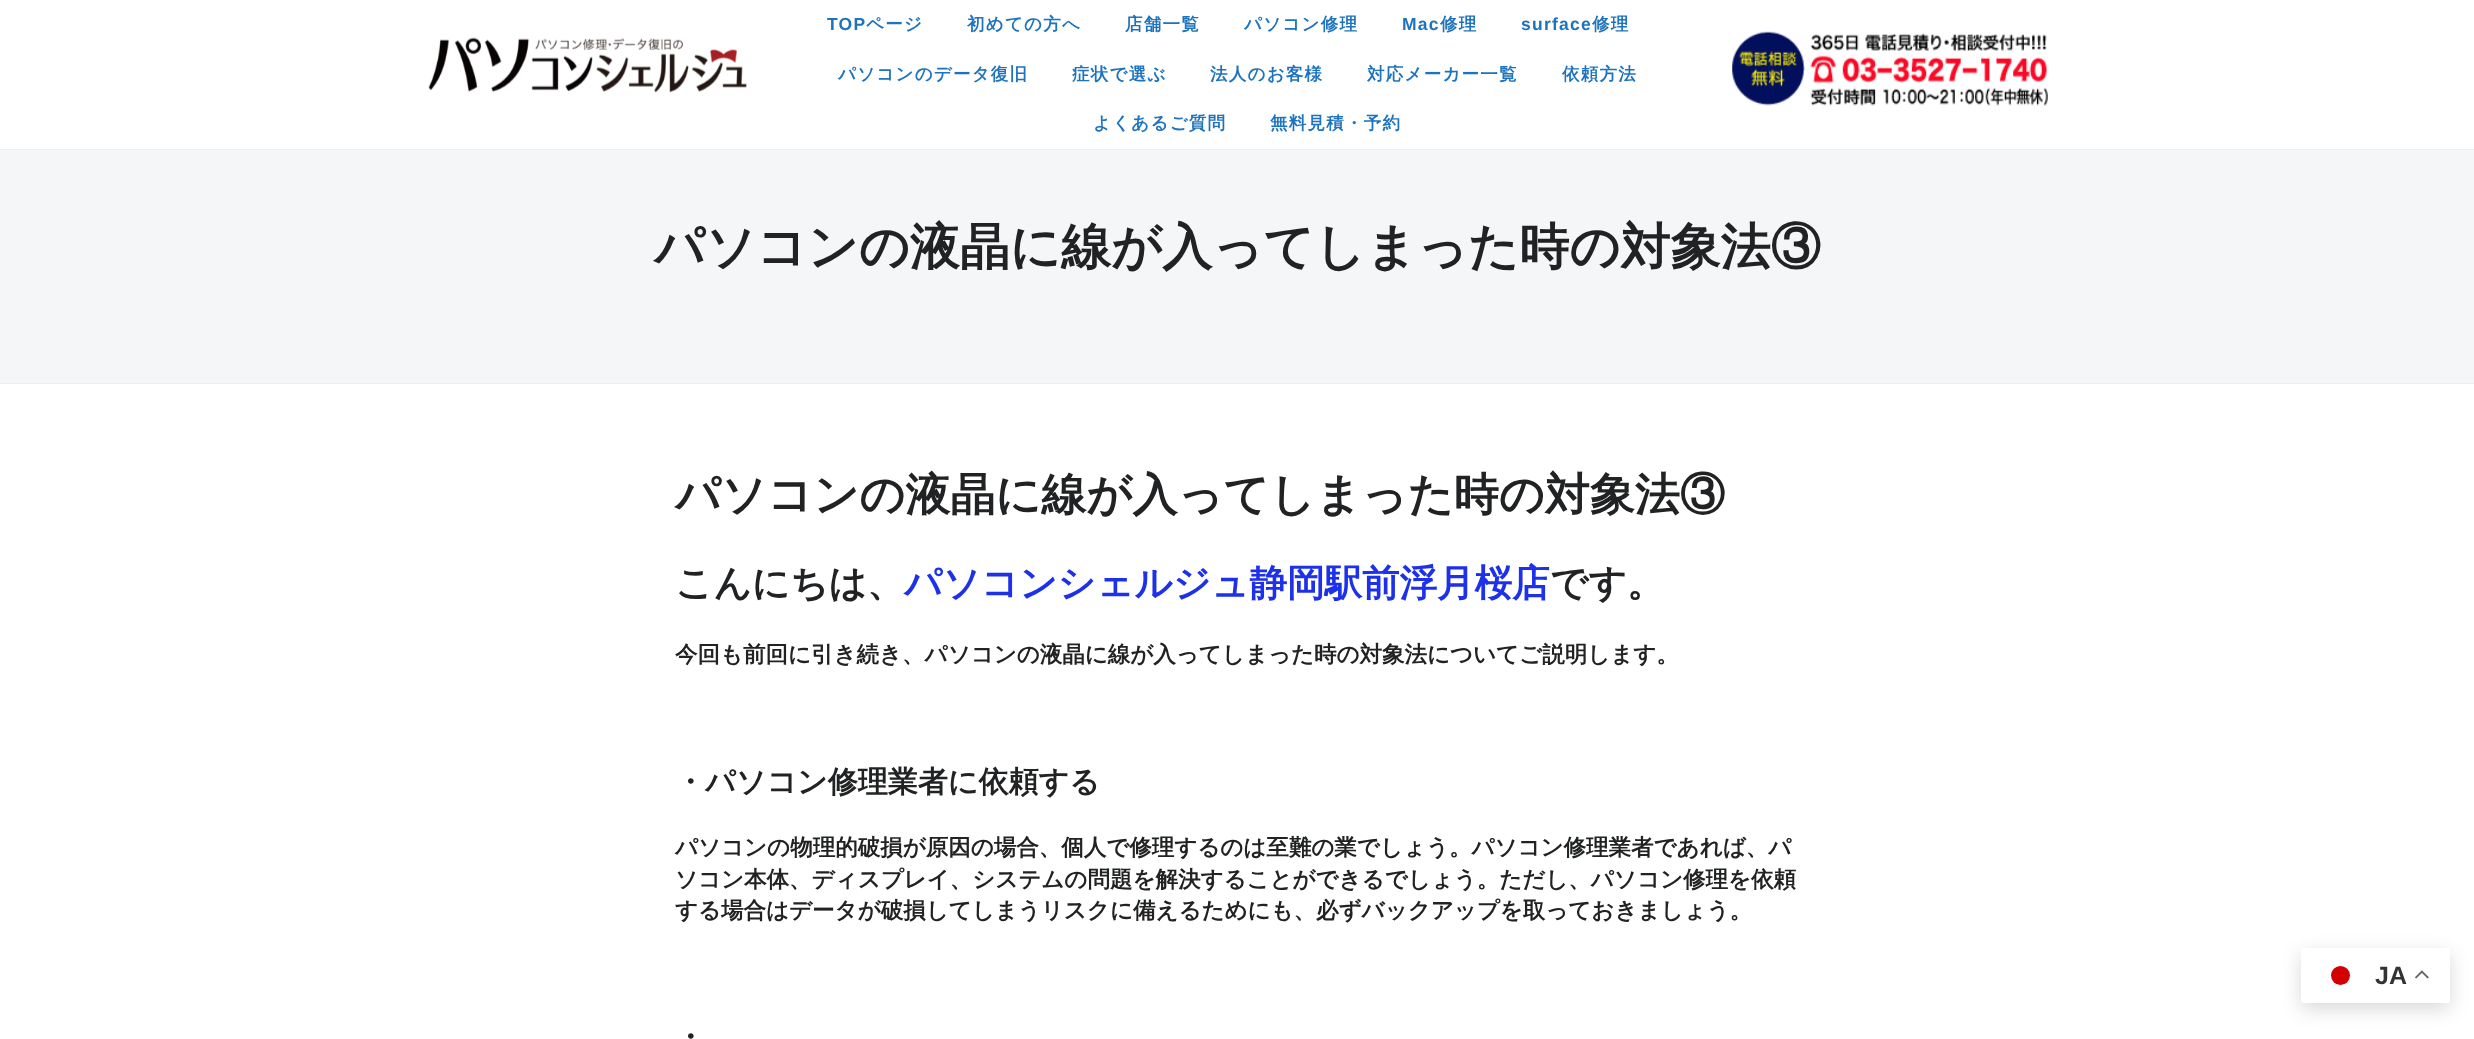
<svg xmlns="http://www.w3.org/2000/svg" width="2474" height="1039" viewBox="0 0 2474 1039">
  <defs>
    <filter id="blur1" x="-50%" y="-200%" width="200%" height="500%"><feGaussianBlur stdDeviation="9.5"/></filter>
  </defs>
  <rect width="100%" height="100%" fill="#ffffff"/>
  <rect x="0" y="149" width="2474" height="1" fill="#eeeeee"/>
  <image x="428" y="37" width="319" height="56" href="img1.png"/>
  <text x="827" y="30" font-family="Liberation Sans" font-size="17.5" font-weight="bold" letter-spacing="1.25" fill="#1e73be">TOP</text>
  <text x="866" y="30" font-family="WenQuanYi Zen Hei" font-size="17.5" font-weight="bold" letter-spacing="1.25" fill="#1e73be">ページ</text>
  <text x="967" y="30" font-family="WenQuanYi Zen Hei" font-size="17.5" font-weight="bold" letter-spacing="1.25" fill="#1e73be">初めての方へ</text>
  <text x="1125" y="30" font-family="WenQuanYi Zen Hei" font-size="17.5" font-weight="bold" letter-spacing="1.25" fill="#1e73be">店舗一覧</text>
  <text x="1244" y="30" font-family="WenQuanYi Zen Hei" font-size="17.5" font-weight="bold" letter-spacing="1.25" fill="#1e73be">パソコン修理</text>
  <text x="1402" y="30" font-family="Liberation Sans" font-size="17.5" font-weight="bold" letter-spacing="1.25" fill="#1e73be">Mac</text>
  <text x="1440" y="30" font-family="WenQuanYi Zen Hei" font-size="17.5" font-weight="bold" letter-spacing="1.25" fill="#1e73be">修理</text>
  <text x="1521" y="30" font-family="Liberation Sans" font-size="17.5" font-weight="bold" letter-spacing="1.25" fill="#1e73be">surface</text>
  <text x="1592" y="30" font-family="WenQuanYi Zen Hei" font-size="17.5" font-weight="bold" letter-spacing="1.25" fill="#1e73be">修理</text>
  <text x="838" y="80" font-family="WenQuanYi Zen Hei" font-size="17.5" font-weight="bold" letter-spacing="1.25" fill="#1e73be">パソコンのデータ復旧</text>
  <text x="1072" y="80" font-family="WenQuanYi Zen Hei" font-size="17.5" font-weight="bold" letter-spacing="1.25" fill="#1e73be">症状で選ぶ</text>
  <text x="1210" y="80" font-family="WenQuanYi Zen Hei" font-size="17.5" font-weight="bold" letter-spacing="1.25" fill="#1e73be">法人のお客様</text>
  <text x="1367" y="80" font-family="WenQuanYi Zen Hei" font-size="17.5" font-weight="bold" letter-spacing="1.25" fill="#1e73be">対応メーカー一覧</text>
  <text x="1562" y="80" font-family="WenQuanYi Zen Hei" font-size="17.5" font-weight="bold" letter-spacing="1.25" fill="#1e73be">依頼方法</text>
  <text x="1093" y="129" font-family="WenQuanYi Zen Hei" font-size="17.5" font-weight="bold" letter-spacing="1.25" fill="#1e73be">よくあるご質問</text>
  <text x="1270" y="129" font-family="WenQuanYi Zen Hei" font-size="17.5" font-weight="bold" letter-spacing="1.25" fill="#1e73be">無料見積・予約</text>
  <image x="1732" y="31" width="316" height="75" href="img2.png"/>
  <rect x="0" y="150" width="2474" height="233" fill="#f5f6f7"/>
  <rect x="0" y="383" width="2474" height="1" fill="#eeeeee"/>
  <text x="654" y="264" font-family="WenQuanYi Zen Hei" font-size="50" font-weight="bold" fill="#212223">パソコンの液晶に線が入ってしまった時の対象法③</text>
  <text x="675" y="510" font-family="WenQuanYi Zen Hei" font-size="45" font-weight="bold" fill="#212223">パソコンの液晶に線が入ってしまった時の対象法③</text>
  <text x="675" y="596" font-family="WenQuanYi Zen Hei" font-size="37.5" font-weight="bold" fill="#212223">こんにちは、</text>
  <text x="904" y="596" font-family="WenQuanYi Zen Hei" font-size="37.5" font-weight="bold" fill="#1e31ea">パソコンシェルジュ静岡駅前浮月桜店</text>
  <text x="1550" y="596" font-family="WenQuanYi Zen Hei" font-size="37.5" font-weight="bold" fill="#212223">です。</text>
  <text x="675" y="662" font-family="WenQuanYi Zen Hei" font-size="22.5" font-weight="bold" fill="#212223">今回も前回に引き続き、パソコンの液晶に線が入ってしまった時の対象法についてご説明します。</text>
  <text x="675" y="792" font-family="WenQuanYi Zen Hei" font-size="30" font-weight="bold" fill="#212223">・パソコン修理業者に依頼する</text>
  <text x="675" y="855" font-family="WenQuanYi Zen Hei" font-size="22.5" font-weight="bold" fill="#212223">パソコンの物理的破損が原因の場合、個人で修理するのは至難の業でしょう。パソコン修理業者であれば、パ</text>
  <text x="675" y="887" font-family="WenQuanYi Zen Hei" font-size="22.5" font-weight="bold" fill="#212223">ソコン本体、ディスプレイ、システムの問題を解決することができるでしょう。ただし、パソコン修理を依頼</text>
  <text x="675" y="918" font-family="WenQuanYi Zen Hei" font-size="22.5" font-weight="bold" fill="#212223">する場合はデータが破損してしまうリスクに備えるためにも、必ずバックアップを取っておきましょう。</text>
  <text x="675" y="1047" font-family="WenQuanYi Zen Hei" font-size="30" font-weight="bold" fill="#212223">・</text>
  <rect x="2301" y="954" width="149" height="55" rx="2.5" fill="#000000" fill-opacity="0.15" filter="url(#blur1)"/>
  <rect x="2301" y="948" width="149" height="55" rx="2.5" fill="#ffffff"/>
  <circle cx="2340.5" cy="975.5" r="9.5" fill="#d30000"/>
  <text x="2375" y="984" font-family="Liberation Sans" font-size="25" font-weight="bold" fill="#333333">JA</text>
  <image x="2415" y="970" width="14" height="9" href="img3.png"/>
</svg>
